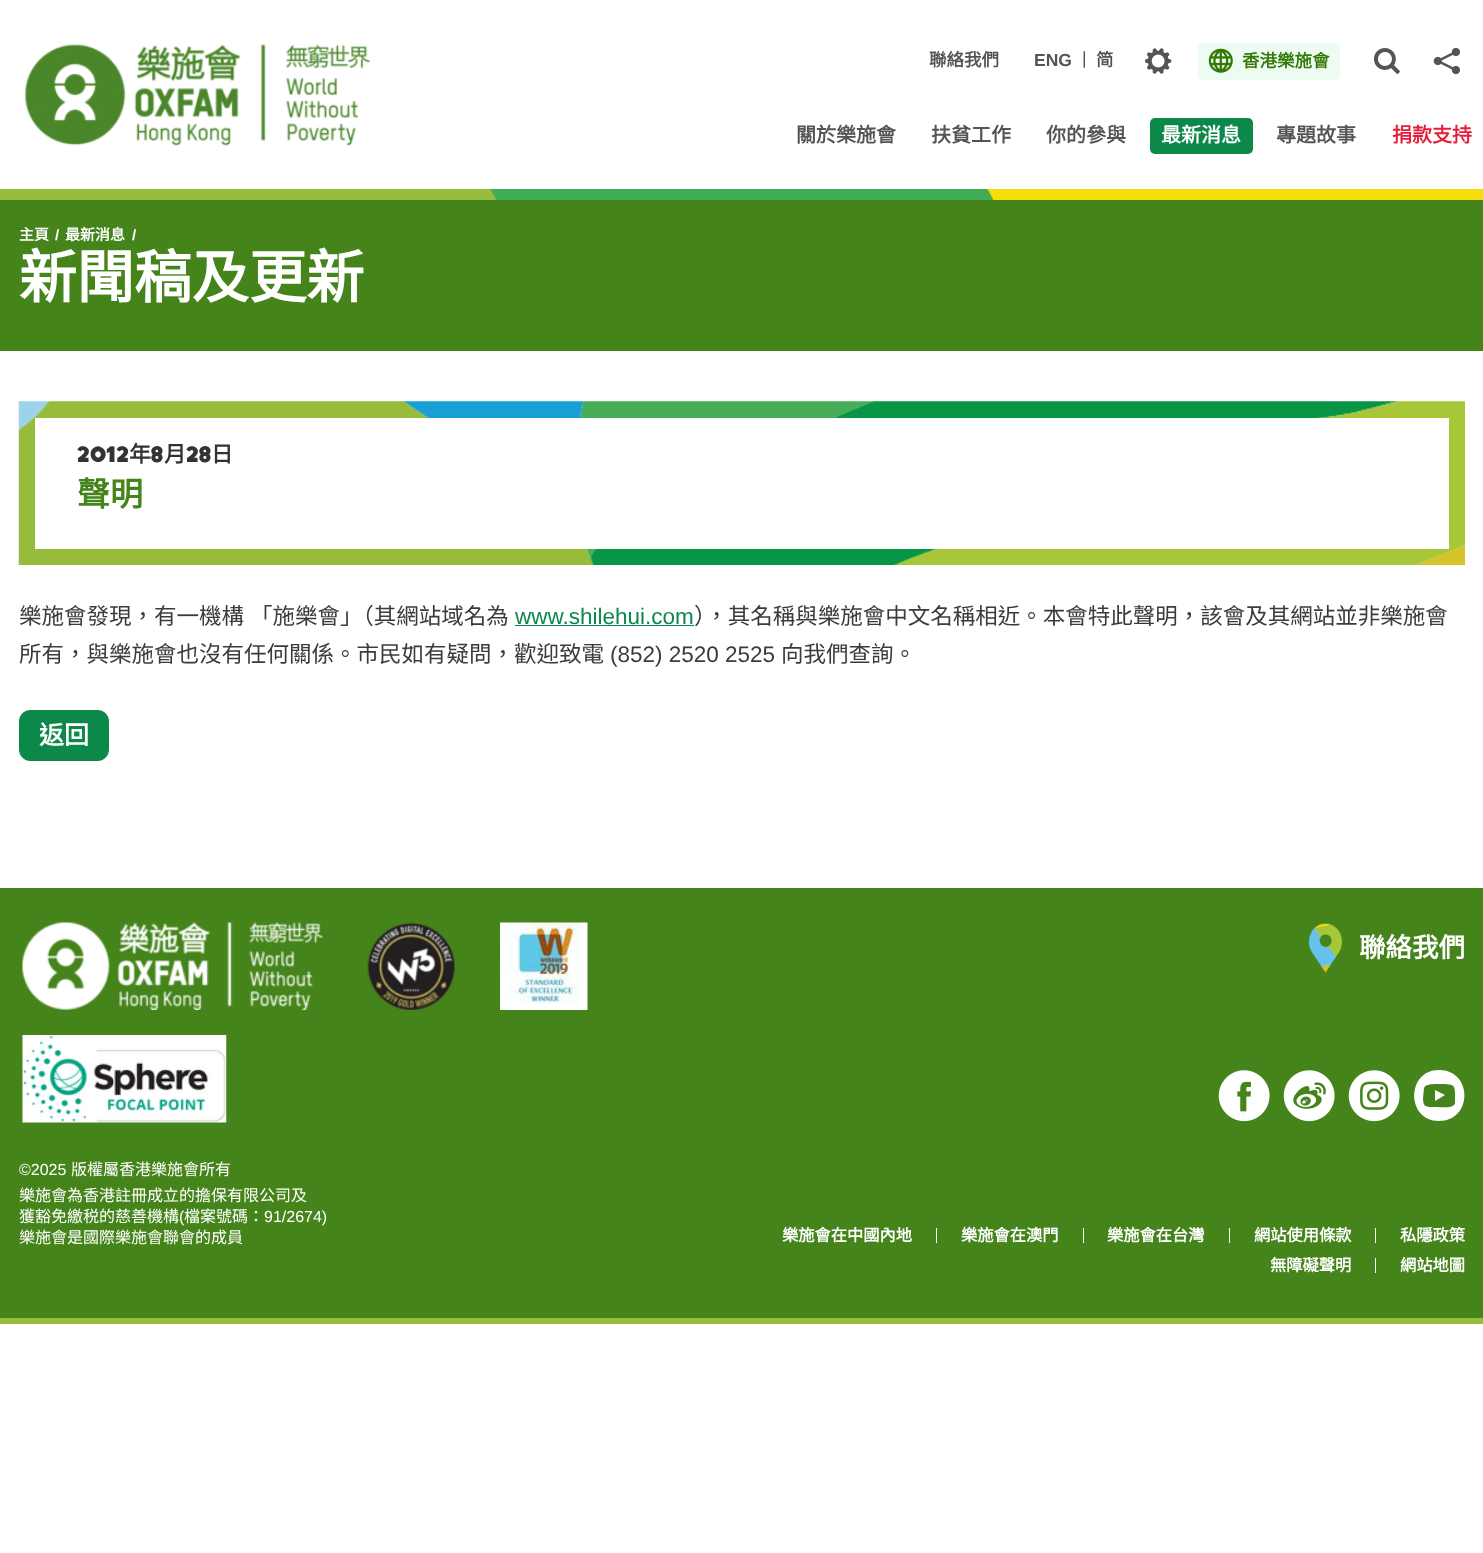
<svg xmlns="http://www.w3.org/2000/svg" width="1483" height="1553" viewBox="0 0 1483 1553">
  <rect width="100%" height="100%" fill="#ffffff"/>
  <image x="24" y="44" width="347" height="102" href="img1.png"/>
  <text x="929" y="66" font-family="Noto Sans CJK HK" font-size="17.5" font-weight="bold" fill="#545454">聯絡我們</text>
  <text x="1034" y="66" font-family="Liberation Sans" font-size="17.5" font-weight="bold" fill="#545454">ENG</text>
  <text x="1082" y="64" font-family="Liberation Sans" font-size="17.5" fill="#545454">|</text>
  <text x="1096" y="66" font-family="Noto Sans CJK HK" font-size="17.5" font-weight="bold" fill="#545454">简</text>
  <image x="1145" y="48" width="27" height="26" href="img2.png"/>
  <rect x="1198" y="43" width="142" height="37" rx="5" fill="#ecfcf1"/>
  <image x="1208" y="48" width="25" height="25" href="img3.png"/>
  <text x="1242" y="67" font-family="Noto Sans CJK HK" font-size="17.5" font-weight="bold" fill="#347907">香港樂施會</text>
  <image x="1373" y="48" width="27" height="26" href="img4.png"/>
  <image x="1433" y="47" width="27" height="28" href="img5.png"/>
  <text x="796" y="142" font-family="Noto Sans CJK HK" font-size="20" font-weight="bold" fill="#545454">關於樂施會</text>
  <text x="931" y="142" font-family="Noto Sans CJK HK" font-size="20" font-weight="bold" fill="#545454">扶貧工作</text>
  <text x="1046" y="142" font-family="Noto Sans CJK HK" font-size="20" font-weight="bold" fill="#545454">你的參與</text>
  <rect x="1150" y="118" width="103" height="36" rx="5" fill="#0c884a"/>
  <text x="1161" y="142" font-family="Noto Sans CJK HK" font-size="20" font-weight="bold" fill="#ffffff">最新消息</text>
  <text x="1276" y="142" font-family="Noto Sans CJK HK" font-size="20" font-weight="bold" fill="#545454">專題故事</text>
  <text x="1392" y="142" font-family="Noto Sans CJK HK" font-size="20" font-weight="bold" fill="#e41d3a">捐款支持</text>
  <rect x="0" y="189" width="1483" height="162" fill="#44841a"/>
  <image x="0" y="189" width="1483" height="11" href="img6.png"/>
  <text x="19" y="240" font-family="Noto Sans CJK HK" font-size="15" font-weight="bold" fill="#ffffff">主頁</text>
  <text x="55" y="240" font-family="Liberation Sans" font-size="15" font-weight="bold" fill="#ffffff">/</text>
  <text x="65" y="240" font-family="Noto Sans CJK HK" font-size="15" font-weight="bold" fill="#ffffff">最新消息</text>
  <text x="132" y="240" font-family="Liberation Sans" font-size="15" font-weight="bold" fill="#ffffff">/</text>
  <text x="19" y="298" font-family="Noto Sans CJK HK" font-size="57.5" font-weight="bold" fill="#ffffff">新聞稿及更新</text>
  <image x="18" y="401" width="1447" height="164" href="img7.png"/>
  <rect x="35" y="418" width="1414" height="131" fill="#ffffff"/>
  <text x="77" y="462" font-family="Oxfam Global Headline" font-size="22" fill="#333333">2012</text>
  <text x="129" y="462" font-family="Noto Sans CJK HK" font-size="22" font-weight="bold" fill="#333333">年</text>
  <text x="150" y="462" font-family="Oxfam Global Headline" font-size="22" fill="#333333">8</text>
  <text x="164" y="462" font-family="Noto Sans CJK HK" font-size="22" font-weight="bold" fill="#333333">月</text>
  <text x="186" y="462" font-family="Oxfam Global Headline" font-size="22" fill="#333333">28</text>
  <text x="211" y="462" font-family="Noto Sans CJK HK" font-size="22" font-weight="bold" fill="#333333">日</text>
  <text x="77" y="506" font-family="Noto Sans CJK HK" font-size="33" font-weight="bold" fill="#44841a">聲明</text>
  <text x="19" y="624" word-spacing="1" font-family="Noto Sans CJK HK" font-size="22.5" fill="#3b3b3b">樂施會發現，有一機構 「施樂會」（其網站域名為</text>
  <text x="515" y="624" font-family="Liberation Sans" font-size="22.5" fill="#0c884a">www.shilehui.com</text>
  <rect x="515" y="625" width="179" height="1" fill="#0c884a"/>
  <text x="694" y="624" font-family="Noto Sans CJK HK" font-size="22.5" fill="#3b3b3b">），其名稱與樂施會中文名稱相近。本會特此聲明，該會及其網站並非樂施會</text>
  <text x="19" y="662" font-family="Noto Sans CJK HK" font-size="22.5" fill="#3b3b3b">所有，與樂施會也沒有任何關係。市民如有疑問，歡迎致電</text>
  <text x="610" y="662" font-family="Liberation Sans" font-size="22.5" fill="#3b3b3b">(852) 2520 2525</text>
  <text x="781" y="662" font-family="Noto Sans CJK HK" font-size="22.5" fill="#3b3b3b">向我們查詢。</text>
  <rect x="19.5" y="710.5" width="89" height="50" rx="10.5" fill="#0c884a" stroke="#0c884a"/>
  <text x="39" y="744" font-family="Noto Sans CJK HK" font-size="25" font-weight="bold" fill="#ffffff">返回</text>
  <rect x="0" y="888" width="1483" height="430" fill="#44841a"/>
  <rect x="0" y="1318" width="1483" height="6" fill="#98bd3c"/>
  <image x="22" y="922" width="301" height="88" href="img8.png"/>
  <image x="367" y="922" width="88" height="88" href="img9.png"/>
  <image x="500" y="922" width="88" height="88" href="img10.png"/>
  <image x="22" y="1035" width="205" height="88" href="img11.png"/>
  <text x="19" y="1175" font-family="Liberation Sans" font-size="16" fill="#ffffff">©2025</text>
  <text x="71" y="1175" font-family="Noto Sans CJK HK" font-size="16" fill="#ffffff">版權屬香港樂施會所有</text>
  <text x="19" y="1201" font-family="Noto Sans CJK HK" font-size="16" fill="#ffffff">樂施會為香港註冊成立的擔保有限公司及</text>
  <text x="19" y="1222" font-family="Noto Sans CJK HK" font-size="16" fill="#ffffff">獲豁免繳税的慈善機構</text>
  <text x="179" y="1222" font-family="Liberation Sans" font-size="16" fill="#ffffff">(</text>
  <text x="184" y="1222" font-family="Noto Sans CJK HK" font-size="16" fill="#ffffff">檔案號碼：</text>
  <text x="264" y="1222" font-family="Liberation Sans" font-size="16" fill="#ffffff">91/2674)</text>
  <text x="19" y="1243" font-family="Noto Sans CJK HK" font-size="16" fill="#ffffff">樂施會是國際樂施會聯會的成員</text>
  <image x="1308" y="923" width="35" height="50" href="img12.png"/>
  <text x="1359" y="957" font-family="Noto Sans CJK HK" font-size="26.5" font-weight="bold" fill="#ffffff">聯絡我們</text>
  <image x="1218" y="1070" width="52" height="52" href="img13.png"/>
  <image x="1283" y="1070" width="52" height="52" href="img14.png"/>
  <image x="1348" y="1070" width="52" height="52" href="img15.png"/>
  <path d="M1435 1101L1445 1095L1435 1090ZM1439 1070C1406 1070 1406 1121 1439 1121C1473 1121 1473 1070 1439 1070ZM1455 1103C1454 1109 1440 1107 1436 1107C1427 1107 1423 1108 1423 1098L1424 1088C1425 1083 1438 1084 1442 1084C1451 1085 1455 1083 1455 1093Z" fill="#ffffff"/>
  <text x="782" y="1241" font-family="Noto Sans CJK HK" font-size="16.25" font-weight="bold" fill="#ffffff">樂施會在中國內地</text>
  <rect x="936" y="1228" width="1" height="15" fill="#ffffff"/>
  <text x="961" y="1241" font-family="Noto Sans CJK HK" font-size="16.25" font-weight="bold" fill="#ffffff">樂施會在澳門</text>
  <rect x="1083" y="1228" width="1" height="15" fill="#ffffff"/>
  <text x="1107" y="1241" font-family="Noto Sans CJK HK" font-size="16.25" font-weight="bold" fill="#ffffff">樂施會在台灣</text>
  <rect x="1229" y="1228" width="1" height="15" fill="#ffffff"/>
  <text x="1254" y="1241" font-family="Noto Sans CJK HK" font-size="16.25" font-weight="bold" fill="#ffffff">網站使用條款</text>
  <rect x="1375" y="1228" width="1" height="15" fill="#ffffff"/>
  <text x="1400" y="1241" font-family="Noto Sans CJK HK" font-size="16.25" font-weight="bold" fill="#ffffff">私隱政策</text>
  <text x="1270" y="1271" font-family="Noto Sans CJK HK" font-size="16.25" font-weight="bold" fill="#ffffff">無障礙聲明</text>
  <rect x="1375" y="1258" width="1" height="15" fill="#ffffff"/>
  <text x="1400" y="1271" font-family="Noto Sans CJK HK" font-size="16.25" font-weight="bold" fill="#ffffff">網站地圖</text>
</svg>
